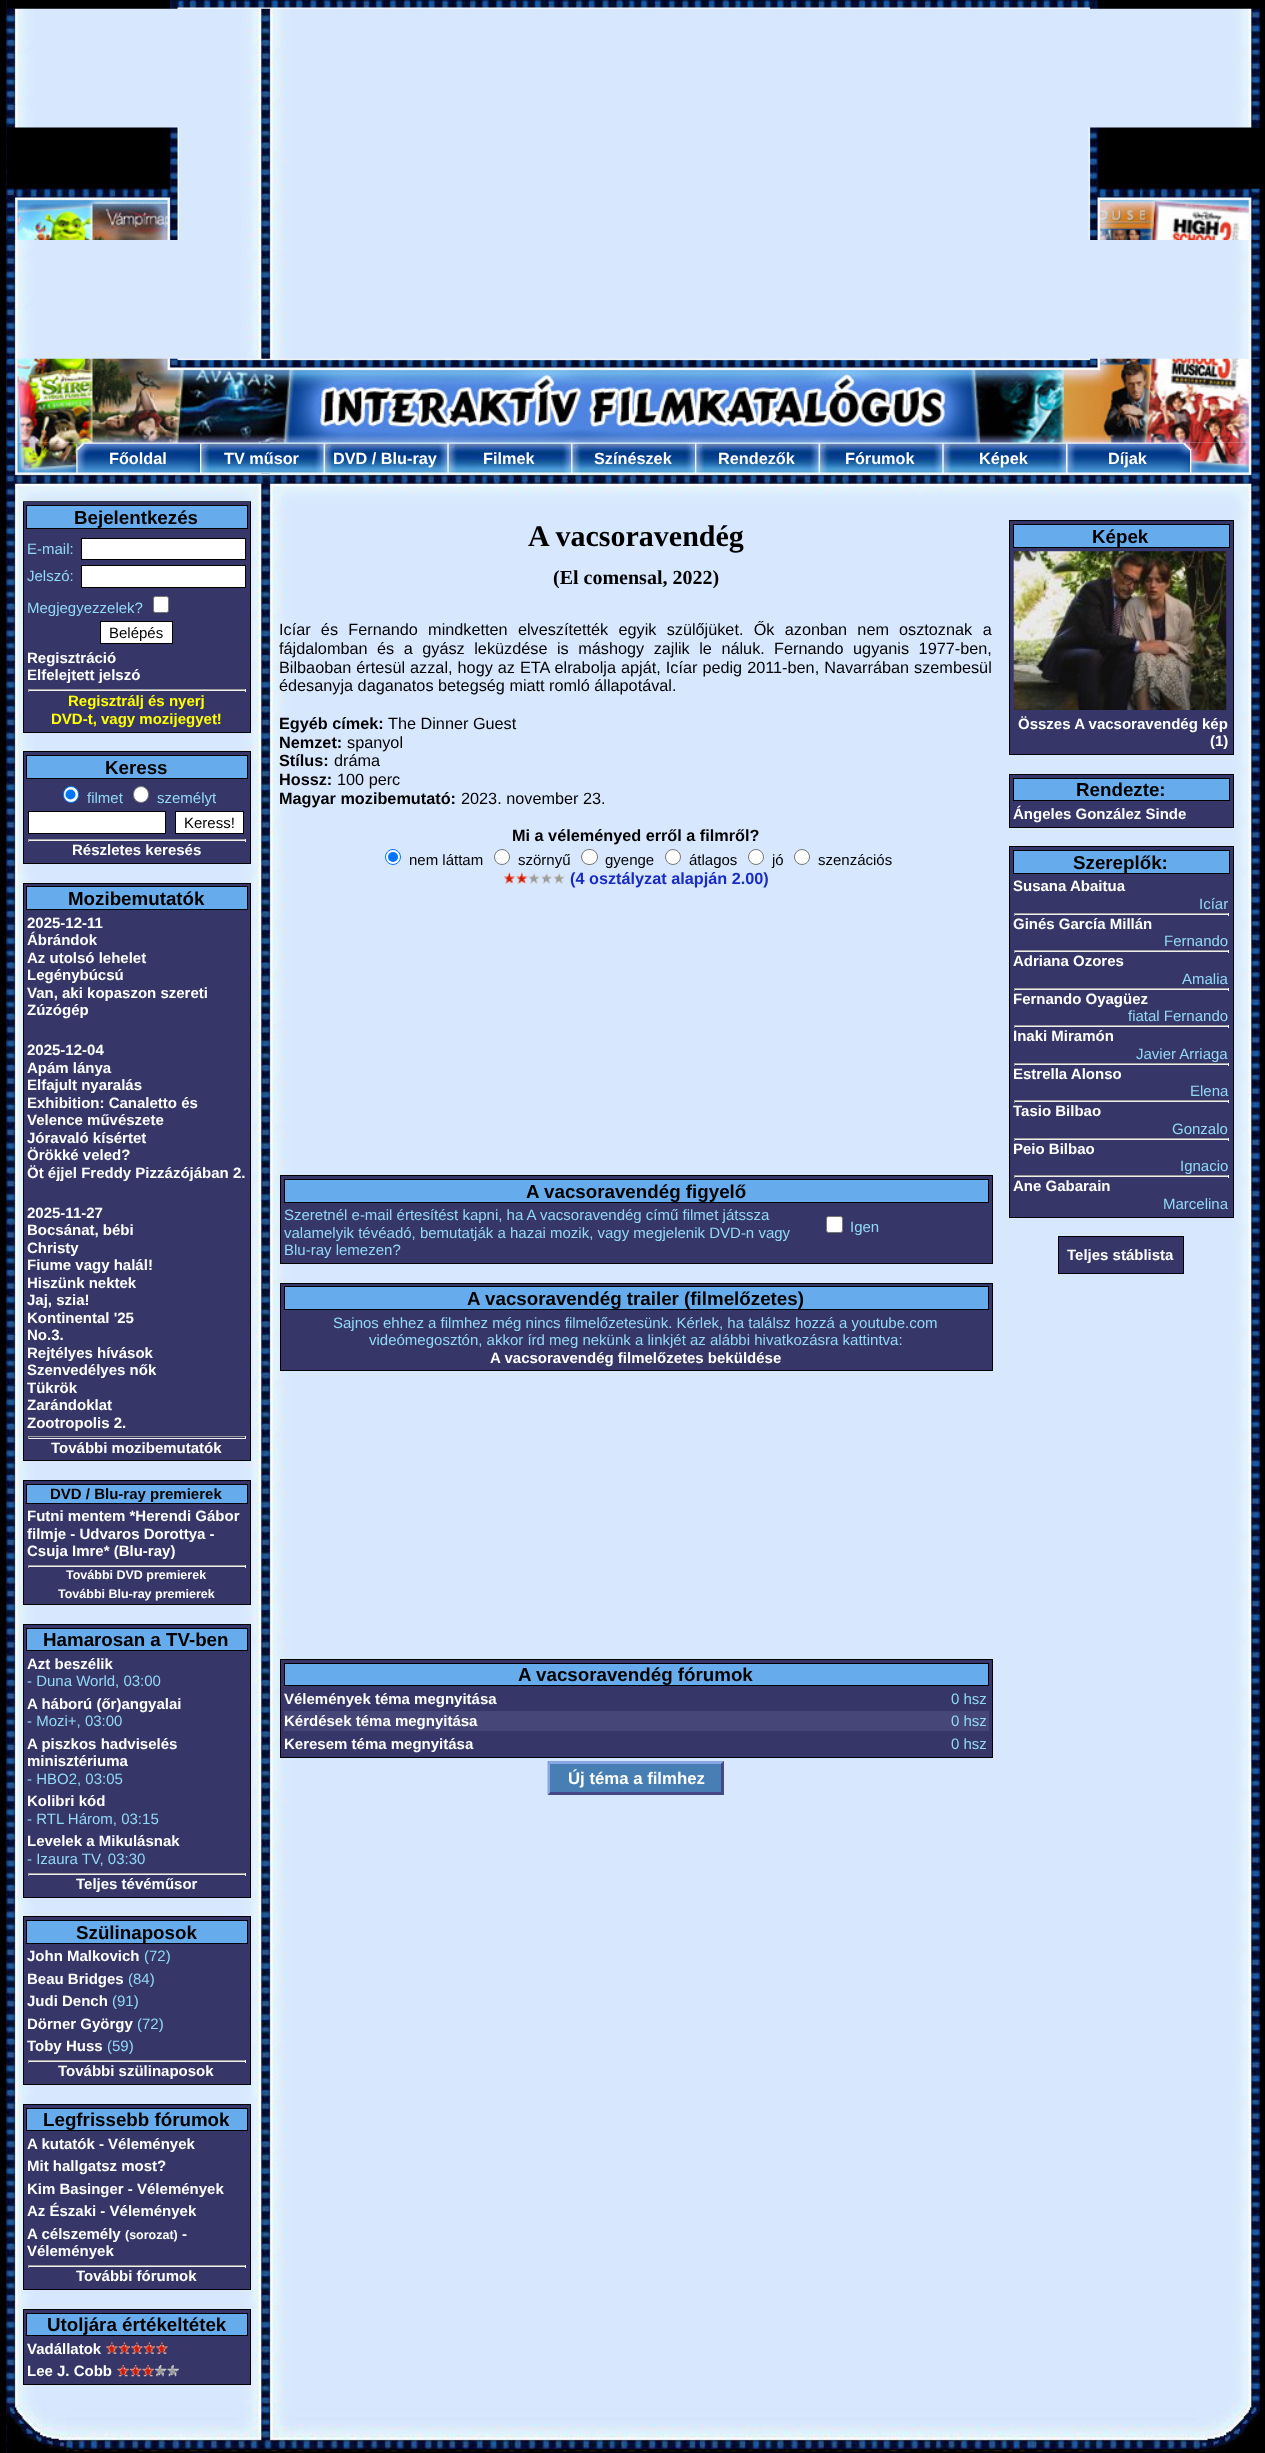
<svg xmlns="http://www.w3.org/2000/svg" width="1265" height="2453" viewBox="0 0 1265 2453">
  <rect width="100%" height="100%" fill="#000000"/>
  <image x="6" y="0" width="1254" height="2453" href="img1.png"/>
  <image x="6" y="0" width="1254" height="9" href="img2.png"/>
  <image x="6" y="127" width="173" height="113" href="img3.png"/>
  <image x="1088" y="127" width="172" height="113" href="img4.png"/>
  <image x="76" y="442" width="124" height="32" href="img7.png"/>
  <image x="200" y="442" width="124" height="32" href="img8.png"/>
  <image x="323" y="442" width="125" height="32" href="img9.png"/>
  <image x="447" y="442" width="125" height="32" href="img10.png"/>
  <image x="571" y="442" width="124" height="32" href="img11.png"/>
  <image x="695" y="442" width="124" height="32" href="img12.png"/>
  <image x="818" y="442" width="125" height="32" href="img13.png"/>
  <image x="942" y="442" width="125" height="32" href="img14.png"/>
  <image x="1066" y="442" width="124" height="32" href="img15.png"/>
  <image x="6" y="358" width="1254" height="85" href="img5.png"/>
  <image x="6" y="442" width="71" height="32" href="img6.png"/>
  <text x="109" y="464" font-family="Liberation Sans" font-size="16.25" font-weight="bold" fill="#ffffff">Főoldal</text>
  <text x="224" y="464" font-family="Liberation Sans" font-size="16.25" font-weight="bold" fill="#ffffff">TV műsor</text>
  <text x="333" y="464" font-family="Liberation Sans" font-size="16.25" font-weight="bold" fill="#ffffff">DVD / Blu-ray</text>
  <text x="483" y="464" font-family="Liberation Sans" font-size="16.25" font-weight="bold" fill="#ffffff">Filmek</text>
  <text x="594" y="464" font-family="Liberation Sans" font-size="16.25" font-weight="bold" fill="#ffffff">Színészek</text>
  <text x="718" y="464" font-family="Liberation Sans" font-size="16.25" font-weight="bold" fill="#ffffff">Rendezők</text>
  <text x="845" y="464" font-family="Liberation Sans" font-size="16.25" font-weight="bold" fill="#ffffff">Fórumok</text>
  <text x="979" y="464" font-family="Liberation Sans" font-size="16.25" font-weight="bold" fill="#ffffff">Képek</text>
  <text x="1108" y="464" font-family="Liberation Sans" font-size="16.25" font-weight="bold" fill="#ffffff">Díjak</text>
  <image x="1190" y="442" width="70" height="32" href="img16.png"/>
  <rect x="23.5" y="501.5" width="227" height="231" fill="#363768" stroke="#000000"/>
  <image x="6" y="473" width="1254" height="29" href="img17.png"/>
  <rect x="26.5" y="505.5" width="221" height="23" fill="#66abeb" stroke="#000000"/>
  <text x="74" y="524" font-family="Liberation Sans" font-size="18.75" font-weight="bold" fill="#000000">Bejelentkezés</text>
  <text x="27" y="554" font-family="Liberation Sans" font-size="15" fill="#92d8f8">E-mail:</text>
  <rect x="81.5" y="538.5" width="164" height="21" fill="#ffffff" stroke="#000000"/>
  <text x="27" y="581" font-family="Liberation Sans" font-size="15" fill="#92d8f8">Jelszó:</text>
  <rect x="81.5" y="565.5" width="164" height="22" fill="#ffffff" stroke="#000000"/>
  <text x="27" y="613" font-family="Liberation Sans" font-size="15" fill="#92d8f8">Megjegyezzelek?</text>
  <rect x="153.5" y="596.5" width="15" height="16" rx="2" fill="#ffffff" stroke="#767676"/>
  <rect x="100.5" y="621.5" width="72" height="22" fill="#ffffff" stroke="#000000"/>
  <text x="109" y="638" font-family="Liberation Sans" font-size="15" fill="#000000">Belépés</text>
  <text x="27" y="663" font-family="Liberation Sans" font-size="15" font-weight="bold" fill="#ffffff">Regisztráció</text>
  <text x="27" y="680" font-family="Liberation Sans" font-size="15" font-weight="bold" fill="#ffffff">Elfelejtett jelszó</text>
  <rect x="28" y="689" width="218" height="1" fill="#9f9f9f"/>
  <rect x="245" y="689" width="1" height="3" fill="#eeeeee"/>
  <rect x="28" y="690" width="218" height="1" fill="#eeeeee"/>
  <rect x="28" y="689" width="1" height="3" fill="#9f9f9f"/>
  <text x="68" y="706" font-family="Liberation Sans" font-size="15" font-weight="bold" fill="#ffff00">Regisztrálj és nyerj</text>
  <text x="51" y="724" font-family="Liberation Sans" font-size="15" font-weight="bold" fill="#ffff00">DVD-t, vagy mozijegyet!</text>
  <rect x="23.5" y="751.5" width="227" height="112" fill="#363768" stroke="#000000"/>
  <rect x="26.5" y="755.5" width="221" height="23" fill="#66abeb" stroke="#000000"/>
  <text x="105" y="774" font-family="Liberation Sans" font-size="18.75" font-weight="bold" fill="#000000">Keress</text>
  <rect x="63.5" y="786.5" width="15" height="16" rx="7.5" fill="#ffffff" stroke="#0075ff"/>
  <circle cx="70.5" cy="794.5" r="5" fill="#0075ff"/>
  <text x="87" y="803" font-family="Liberation Sans" font-size="15" fill="#92d8f8">filmet</text>
  <rect x="133.5" y="786.5" width="15" height="16" rx="7.5" fill="#ffffff" stroke="#767676"/>
  <text x="157" y="803" font-family="Liberation Sans" font-size="15" fill="#92d8f8">személyt</text>
  <rect x="28.5" y="811.5" width="137" height="22" fill="#ffffff" stroke="#000000"/>
  <rect x="175.5" y="811.5" width="68" height="22" fill="#ffffff" stroke="#000000"/>
  <text x="184" y="828" font-family="Liberation Sans" font-size="15" fill="#000000">Keress!</text>
  <rect x="28" y="839" width="218" height="1" fill="#9f9f9f"/>
  <rect x="245" y="839" width="1" height="3" fill="#eeeeee"/>
  <rect x="28" y="840" width="218" height="1" fill="#eeeeee"/>
  <rect x="28" y="839" width="1" height="3" fill="#9f9f9f"/>
  <text x="72" y="855" font-family="Liberation Sans" font-size="15" font-weight="bold" fill="#ffffff">Részletes keresés</text>
  <rect x="23.5" y="883.5" width="227" height="577" fill="#363768" stroke="#000000"/>
  <rect x="26.5" y="886.5" width="221" height="23" fill="#66abeb" stroke="#000000"/>
  <text x="68" y="905" font-family="Liberation Sans" font-size="18.75" font-weight="bold" fill="#000000">Mozibemutatók</text>
  <text x="27" y="928" font-family="Liberation Sans" font-size="15" font-weight="bold" fill="#ffffff">2025-12-11</text>
  <text x="27" y="945" font-family="Liberation Sans" font-size="15" font-weight="bold" fill="#ffffff">Ábrándok</text>
  <text x="27" y="963" font-family="Liberation Sans" font-size="15" font-weight="bold" fill="#ffffff">Az utolsó lehelet</text>
  <text x="27" y="980" font-family="Liberation Sans" font-size="15" font-weight="bold" fill="#ffffff">Legénybúcsú</text>
  <text x="27" y="998" font-family="Liberation Sans" font-size="15" font-weight="bold" fill="#ffffff">Van, aki kopaszon szereti</text>
  <text x="27" y="1015" font-family="Liberation Sans" font-size="15" font-weight="bold" fill="#ffffff">Zúzógép</text>
  <text x="27" y="1055" font-family="Liberation Sans" font-size="15" font-weight="bold" fill="#ffffff">2025-12-04</text>
  <text x="27" y="1073" font-family="Liberation Sans" font-size="15" font-weight="bold" fill="#ffffff">Apám lánya</text>
  <text x="27" y="1090" font-family="Liberation Sans" font-size="15" font-weight="bold" fill="#ffffff">Elfajult nyaralás</text>
  <text x="27" y="1108" font-family="Liberation Sans" font-size="15" font-weight="bold" fill="#ffffff">Exhibition: Canaletto és</text>
  <text x="27" y="1125" font-family="Liberation Sans" font-size="15" font-weight="bold" fill="#ffffff">Velence művészete</text>
  <text x="27" y="1143" font-family="Liberation Sans" font-size="15" font-weight="bold" fill="#ffffff">Jóravaló kísértet</text>
  <text x="27" y="1160" font-family="Liberation Sans" font-size="15" font-weight="bold" fill="#ffffff">Örökké veled?</text>
  <text x="27" y="1178" font-family="Liberation Sans" font-size="15" font-weight="bold" fill="#ffffff">Öt éjjel Freddy Pizzázójában 2.</text>
  <text x="27" y="1218" font-family="Liberation Sans" font-size="15" font-weight="bold" fill="#ffffff">2025-11-27</text>
  <text x="27" y="1235" font-family="Liberation Sans" font-size="15" font-weight="bold" fill="#ffffff">Bocsánat, bébi</text>
  <text x="27" y="1253" font-family="Liberation Sans" font-size="15" font-weight="bold" fill="#ffffff">Christy</text>
  <text x="27" y="1270" font-family="Liberation Sans" font-size="15" font-weight="bold" fill="#ffffff">Fiume vagy halál!</text>
  <text x="27" y="1288" font-family="Liberation Sans" font-size="15" font-weight="bold" fill="#ffffff">Hiszünk nektek</text>
  <text x="27" y="1305" font-family="Liberation Sans" font-size="15" font-weight="bold" fill="#ffffff">Jaj, szia!</text>
  <text x="27" y="1323" font-family="Liberation Sans" font-size="15" font-weight="bold" fill="#ffffff">Kontinental '25</text>
  <text x="27" y="1340" font-family="Liberation Sans" font-size="15" font-weight="bold" fill="#ffffff">No.3.</text>
  <text x="27" y="1358" font-family="Liberation Sans" font-size="15" font-weight="bold" fill="#ffffff">Rejtélyes hívások</text>
  <text x="27" y="1375" font-family="Liberation Sans" font-size="15" font-weight="bold" fill="#ffffff">Szenvedélyes nők</text>
  <text x="27" y="1393" font-family="Liberation Sans" font-size="15" font-weight="bold" fill="#ffffff">Tükrök</text>
  <text x="27" y="1410" font-family="Liberation Sans" font-size="15" font-weight="bold" fill="#ffffff">Zarándoklat</text>
  <text x="27" y="1428" font-family="Liberation Sans" font-size="15" font-weight="bold" fill="#ffffff">Zootropolis 2.</text>
  <rect x="28" y="1436" width="218" height="1" fill="#9f9f9f"/>
  <rect x="245" y="1436" width="1" height="3" fill="#eeeeee"/>
  <rect x="28" y="1438" width="218" height="1" fill="#eeeeee"/>
  <rect x="28" y="1436" width="1" height="3" fill="#9f9f9f"/>
  <text x="51" y="1453" font-family="Liberation Sans" font-size="15" font-weight="bold" fill="#ffffff">További mozibemutatók</text>
  <rect x="23.5" y="1480.5" width="227" height="124" fill="#363768" stroke="#000000"/>
  <rect x="26.5" y="1484.5" width="221" height="19" fill="#66abeb" stroke="#000000"/>
  <text x="50" y="1499" font-family="Liberation Sans" font-size="15" font-weight="bold" fill="#000000">DVD / Blu-ray premierek</text>
  <text x="27" y="1521" font-family="Liberation Sans" font-size="15" font-weight="bold" fill="#ffffff">Futni mentem *Herendi Gábor</text>
  <text x="27" y="1539" font-family="Liberation Sans" font-size="15" font-weight="bold" fill="#ffffff">filmje - Udvaros Dorottya -</text>
  <text x="27" y="1556" font-family="Liberation Sans" font-size="15" font-weight="bold" fill="#ffffff">Csuja Imre* (Blu-ray)</text>
  <rect x="28" y="1565" width="218" height="1" fill="#9f9f9f"/>
  <rect x="245" y="1565" width="1" height="3" fill="#eeeeee"/>
  <rect x="28" y="1566" width="218" height="1" fill="#eeeeee"/>
  <rect x="28" y="1565" width="1" height="3" fill="#9f9f9f"/>
  <text x="66" y="1579" font-family="Liberation Sans" font-size="12.5" font-weight="bold" fill="#ffffff">További DVD premierek</text>
  <text x="58" y="1598" font-family="Liberation Sans" font-size="12.5" font-weight="bold" fill="#ffffff">További Blu-ray premierek</text>
  <rect x="23.5" y="1624.5" width="227" height="273" fill="#363768" stroke="#000000"/>
  <rect x="26.5" y="1628.5" width="221" height="22" fill="#66abeb" stroke="#000000"/>
  <text x="43" y="1646" font-family="Liberation Sans" font-size="18.75" font-weight="bold" fill="#000000">Hamarosan a TV-ben</text>
  <text x="27" y="1669" font-family="Liberation Sans" font-size="15" font-weight="bold" fill="#ffffff">Azt beszélik</text>
  <text x="27" y="1686" font-family="Liberation Sans" font-size="15" fill="#92d8f8">- Duna World, 03:00</text>
  <text x="27" y="1709" font-family="Liberation Sans" font-size="15" font-weight="bold" fill="#ffffff">A háború (őr)angyalai</text>
  <text x="27" y="1726" font-family="Liberation Sans" font-size="15" fill="#92d8f8">- Mozi+, 03:00</text>
  <text x="27" y="1749" font-family="Liberation Sans" font-size="15" font-weight="bold" fill="#ffffff">A piszkos hadviselés</text>
  <text x="27" y="1766" font-family="Liberation Sans" font-size="15" font-weight="bold" fill="#ffffff">minisztériuma</text>
  <text x="27" y="1784" font-family="Liberation Sans" font-size="15" fill="#92d8f8">- HBO2, 03:05</text>
  <text x="27" y="1806" font-family="Liberation Sans" font-size="15" font-weight="bold" fill="#ffffff">Kolibri kód</text>
  <text x="27" y="1824" font-family="Liberation Sans" font-size="15" fill="#92d8f8">- RTL Három, 03:15</text>
  <text x="27" y="1846" font-family="Liberation Sans" font-size="15" font-weight="bold" fill="#ffffff">Levelek a Mikulásnak</text>
  <text x="27" y="1864" font-family="Liberation Sans" font-size="15" fill="#92d8f8">- Izaura TV, 03:30</text>
  <rect x="28" y="1873" width="218" height="1" fill="#9f9f9f"/>
  <rect x="245" y="1873" width="1" height="3" fill="#eeeeee"/>
  <rect x="28" y="1874" width="218" height="1" fill="#eeeeee"/>
  <rect x="28" y="1873" width="1" height="3" fill="#9f9f9f"/>
  <text x="76" y="1889" font-family="Liberation Sans" font-size="15" font-weight="bold" fill="#ffffff">Teljes tévéműsor</text>
  <rect x="23.5" y="1916.5" width="227" height="168" fill="#363768" stroke="#000000"/>
  <rect x="26.5" y="1920.5" width="221" height="23" fill="#66abeb" stroke="#000000"/>
  <text x="76" y="1939" font-family="Liberation Sans" font-size="18.75" font-weight="bold" fill="#000000">Szülinaposok</text>
  <text x="27" y="1961" font-family="Liberation Sans" font-size="15" font-weight="bold" fill="#ffffff">John Malkovich</text>
  <text x="144" y="1961" font-family="Liberation Sans" font-size="15" fill="#92d8f8">(72)</text>
  <text x="27" y="1984" font-family="Liberation Sans" font-size="15" font-weight="bold" fill="#ffffff">Beau Bridges</text>
  <text x="128" y="1984" font-family="Liberation Sans" font-size="15" fill="#92d8f8">(84)</text>
  <text x="27" y="2006" font-family="Liberation Sans" font-size="15" font-weight="bold" fill="#ffffff">Judi Dench</text>
  <text x="112" y="2006" font-family="Liberation Sans" font-size="15" fill="#92d8f8">(91)</text>
  <text x="27" y="2029" font-family="Liberation Sans" font-size="15" font-weight="bold" fill="#ffffff">Dörner György</text>
  <text x="137" y="2029" font-family="Liberation Sans" font-size="15" fill="#92d8f8">(72)</text>
  <text x="27" y="2051" font-family="Liberation Sans" font-size="15" font-weight="bold" fill="#ffffff">Toby Huss</text>
  <text x="107" y="2051" font-family="Liberation Sans" font-size="15" fill="#92d8f8">(59)</text>
  <rect x="28" y="2060" width="218" height="1" fill="#9f9f9f"/>
  <rect x="245" y="2060" width="1" height="3" fill="#eeeeee"/>
  <rect x="28" y="2061" width="218" height="1" fill="#eeeeee"/>
  <rect x="28" y="2060" width="1" height="3" fill="#9f9f9f"/>
  <text x="58" y="2076" font-family="Liberation Sans" font-size="15" font-weight="bold" fill="#ffffff">További szülinaposok</text>
  <rect x="23.5" y="2104.5" width="227" height="185" fill="#363768" stroke="#000000"/>
  <rect x="26.5" y="2108.5" width="221" height="22" fill="#66abeb" stroke="#000000"/>
  <text x="43" y="2126" font-family="Liberation Sans" font-size="18.75" font-weight="bold" fill="#000000">Legfrissebb fórumok</text>
  <text x="27" y="2149" font-family="Liberation Sans" font-size="15" font-weight="bold" fill="#ffffff">A kutatók - Vélemények</text>
  <text x="27" y="2171" font-family="Liberation Sans" font-size="15" font-weight="bold" fill="#ffffff">Mit hallgatsz most?</text>
  <text x="27" y="2194" font-family="Liberation Sans" font-size="15" font-weight="bold" fill="#ffffff">Kim Basinger - Vélemények</text>
  <text x="27" y="2216" font-family="Liberation Sans" font-size="15" font-weight="bold" fill="#ffffff">Az Északi - Vélemények</text>
  <text x="27" y="2239" font-family="Liberation Sans" font-size="15" font-weight="bold" fill="#ffffff">A célszemély</text>
  <text x="125" y="2239" font-family="Liberation Sans" font-size="12.5" font-weight="bold" fill="#ffffff">(sorozat)</text>
  <text x="182" y="2239" font-family="Liberation Sans" font-size="15" font-weight="bold" fill="#ffffff">-</text>
  <text x="27" y="2256" font-family="Liberation Sans" font-size="15" font-weight="bold" fill="#ffffff">Vélemények</text>
  <rect x="28" y="2265" width="218" height="1" fill="#9f9f9f"/>
  <rect x="245" y="2265" width="1" height="3" fill="#eeeeee"/>
  <rect x="28" y="2266" width="218" height="1" fill="#eeeeee"/>
  <rect x="28" y="2265" width="1" height="3" fill="#9f9f9f"/>
  <text x="76" y="2281" font-family="Liberation Sans" font-size="15" font-weight="bold" fill="#ffffff">További fórumok</text>
  <rect x="23.5" y="2309.5" width="227" height="75" fill="#363768" stroke="#000000"/>
  <rect x="26.5" y="2313.5" width="221" height="22" fill="#66abeb" stroke="#000000"/>
  <text x="47" y="2331" font-family="Liberation Sans" font-size="18.75" font-weight="bold" fill="#000000">Utoljára értékeltétek</text>
  <text x="27" y="2354" font-family="Liberation Sans" font-size="15" font-weight="bold" fill="#ffffff">Vadállatok</text>
  <image x="106" y="2342" width="12" height="12" href="img18.png"/>
  <image x="118" y="2342" width="12" height="12" href="img19.png"/>
  <image x="131" y="2342" width="12" height="12" href="img18.png"/>
  <image x="143" y="2342" width="12" height="12" href="img19.png"/>
  <image x="156" y="2342" width="12" height="12" href="img18.png"/>
  <text x="27" y="2376" font-family="Liberation Sans" font-size="15" font-weight="bold" fill="#ffffff">Lee J. Cobb</text>
  <image x="117" y="2365" width="12" height="12" href="img20.png"/>
  <image x="129" y="2365" width="13" height="12" href="img21.png"/>
  <image x="142" y="2365" width="12" height="12" href="img20.png"/>
  <image x="154" y="2365" width="13" height="12" href="img22.png"/>
  <image x="167" y="2365" width="12" height="12" href="img23.png"/>
  <text x="528" y="546" font-family="Liberation Serif" font-size="30" font-weight="bold" fill="#000000">A vacsoravendég</text>
  <text x="553" y="584" font-family="Liberation Serif" font-size="20" font-weight="bold" fill="#000000">(El comensal, 2022)</text>
  <text x="279" y="635" word-spacing="5.75" font-family="Liberation Sans" font-size="16.25" fill="#000000">Icíar és Fernando mindketten elveszítették egyik szülőjüket. Ők azonban nem</text>
  <text x="899" y="635" word-spacing="6" font-family="Liberation Sans" font-size="16.25" fill="#000000">osztoznak a</text>
  <text x="279" y="654" word-spacing="5" font-family="Liberation Sans" font-size="16.25" fill="#000000">fájdalomban és a gyász leküzdése is máshogy zajlik le náluk.</text>
  <text x="774" y="654" word-spacing="5" font-family="Liberation Sans" font-size="16.25" fill="#000000">Fernando ugyanis 1977-ben,</text>
  <text x="279" y="673" word-spacing="0.5" font-family="Liberation Sans" font-size="16.25" fill="#000000">Bilbaoban értesül azzal, hogy az ETA elrabolja</text>
  <text x="621" y="673" word-spacing="0.5" font-family="Liberation Sans" font-size="16.25" fill="#000000">apját, Icíar pedig 2011-ben, Navarrában szembesül</text>
  <text x="279" y="691" font-family="Liberation Sans" font-size="16.25" fill="#000000">édesanyja daganatos betegség miatt romló állapotával.</text>
  <text x="279" y="729" font-family="Liberation Sans" font-size="16.25" font-weight="bold" fill="#000000">Egyéb címek:</text>
  <text x="388" y="729" font-family="Liberation Sans" font-size="16.25" fill="#000000">The Dinner Guest</text>
  <text x="279" y="748" font-family="Liberation Sans" font-size="16.25" font-weight="bold" fill="#000000">Nemzet:</text>
  <text x="347" y="748" font-family="Liberation Sans" font-size="16.25" fill="#000000">spanyol</text>
  <text x="279" y="766" font-family="Liberation Sans" font-size="16.25" font-weight="bold" fill="#000000">Stílus:</text>
  <text x="334" y="766" font-family="Liberation Sans" font-size="16.25" fill="#000000">dráma</text>
  <text x="279" y="785" font-family="Liberation Sans" font-size="16.25" font-weight="bold" fill="#000000">Hossz:</text>
  <text x="337" y="785" font-family="Liberation Sans" font-size="16.25" fill="#000000">100 perc</text>
  <text x="279" y="804" font-family="Liberation Sans" font-size="16.25" font-weight="bold" fill="#000000">Magyar mozibemutató:</text>
  <text x="461" y="804" font-family="Liberation Sans" font-size="16.25" fill="#000000">2023. november 23.</text>
  <text x="512" y="841" font-family="Liberation Sans" font-size="16.25" font-weight="bold" fill="#000000">Mi a véleményed erről a filmről?</text>
  <circle cx="393" cy="857" r="7.5" fill="#ffffff" stroke="#0075ff"/>
  <circle cx="393" cy="857" r="5" fill="#0075ff"/>
  <text x="409" y="865" font-family="Liberation Sans" font-size="15" fill="#000000">nem láttam</text>
  <circle cx="502" cy="857" r="7.5" fill="#ffffff" stroke="#767676"/>
  <text x="518" y="865" font-family="Liberation Sans" font-size="15" fill="#000000">szörnyű</text>
  <rect x="581.5" y="849.5" width="16" height="15" rx="7.5" fill="#ffffff" stroke="#767676"/>
  <text x="605" y="865" font-family="Liberation Sans" font-size="15" fill="#000000">gyenge</text>
  <circle cx="673" cy="857" r="7.5" fill="#ffffff" stroke="#767676"/>
  <text x="689" y="865" font-family="Liberation Sans" font-size="15" fill="#000000">átlagos</text>
  <circle cx="756" cy="857" r="7.5" fill="#ffffff" stroke="#767676"/>
  <text x="772" y="865" font-family="Liberation Sans" font-size="15" fill="#000000">jó</text>
  <circle cx="802" cy="857" r="7.5" fill="#ffffff" stroke="#767676"/>
  <text x="818" y="865" font-family="Liberation Sans" font-size="15" fill="#000000">szenzációs</text>
  <image x="503" y="872" width="12" height="12" href="img24.png"/>
  <image x="516" y="872" width="12" height="12" href="img25.png"/>
  <image x="528" y="872" width="12" height="12" href="img26.png"/>
  <image x="541" y="872" width="12" height="12" href="img27.png"/>
  <image x="553" y="872" width="12" height="12" href="img26.png"/>
  <text x="570" y="884" font-family="Liberation Sans" font-size="16.25" font-weight="bold" fill="#182cc5">(4 osztályzat alapján 2.00)</text>
  <rect x="280.5" y="1175.5" width="712" height="88" fill="#363768" stroke="#000000"/>
  <rect x="284.5" y="1179.5" width="704" height="23" fill="#66abeb" stroke="#000000"/>
  <text x="526" y="1198" font-family="Liberation Sans" font-size="18.75" font-weight="bold" fill="#000000">A vacsoravendég figyelő</text>
  <text x="284" y="1220" font-family="Liberation Sans" font-size="15" fill="#92d8f8">Szeretnél e-mail értesítést kapni, ha A vacsoravendég című filmet játssza</text>
  <text x="284" y="1238" font-family="Liberation Sans" font-size="15" fill="#92d8f8">valamelyik tévéadó, bemutatják a hazai mozik, vagy megjelenik DVD-n vagy</text>
  <text x="284" y="1255" font-family="Liberation Sans" font-size="15" fill="#92d8f8">Blu-ray lemezen?</text>
  <rect x="826.5" y="1216.5" width="16" height="16" rx="2" fill="#ffffff" stroke="#767676"/>
  <text x="850" y="1232" font-family="Liberation Sans" font-size="15" fill="#92d8f8">Igen</text>
  <rect x="280.5" y="1283.5" width="712" height="87" fill="#363768" stroke="#000000"/>
  <rect x="284.5" y="1286.5" width="704" height="23" fill="#66abeb" stroke="#000000"/>
  <text x="467" y="1305" font-family="Liberation Sans" font-size="18.75" font-weight="bold" fill="#000000">A vacsoravendég trailer (filmelőzetes)</text>
  <text x="333" y="1328" font-family="Liberation Sans" font-size="15" fill="#92d8f8">Sajnos ehhez a filmhez még nincs filmelőzetesünk. Kérlek, ha találsz hozzá a youtube.com</text>
  <text x="369" y="1345" font-family="Liberation Sans" font-size="15" fill="#92d8f8">videómegosztón, akkor írd meg nekünk a linkjét az alábbi hivatkozásra kattintva:</text>
  <text x="490" y="1363" font-family="Liberation Sans" font-size="15" font-weight="bold" fill="#ffffff">A vacsoravendég filmelőzetes beküldése</text>
  <rect x="280.5" y="1659.5" width="712" height="98" fill="#363768" stroke="#000000"/>
  <rect x="284.5" y="1663.5" width="704" height="22" fill="#66abeb" stroke="#000000"/>
  <text x="518" y="1681" font-family="Liberation Sans" font-size="18.75" font-weight="bold" fill="#000000">A vacsoravendég fórumok</text>
  <text x="284" y="1704" font-family="Liberation Sans" font-size="15" font-weight="bold" fill="#ffffff">Vélemények téma megnyitása</text>
  <text x="951" y="1704" font-family="Liberation Sans" font-size="15" fill="#92d8f8">0 hsz</text>
  <rect x="284" y="1711" width="705" height="20" fill="#464778"/>
  <text x="284" y="1726" font-family="Liberation Sans" font-size="15" font-weight="bold" fill="#ffffff">Kérdések téma megnyitása</text>
  <text x="951" y="1726" font-family="Liberation Sans" font-size="15" fill="#92d8f8">0 hsz</text>
  <text x="284" y="1749" font-family="Liberation Sans" font-size="15" font-weight="bold" fill="#ffffff">Keresem téma megnyitása</text>
  <text x="951" y="1749" font-family="Liberation Sans" font-size="15" fill="#92d8f8">0 hsz</text>
  <rect x="548" y="1761" width="176" height="34" fill="#477fb4"/>
  <path d="M548 1761H724L721 1764H550Z" fill="#89a6e6"/>
  <path d="M724 1761V1795L721 1792.5V1764Z" fill="#464787"/>
  <path d="M724 1795H548L550 1792H721Z" fill="#464787"/>
  <path d="M547.5 1795V1761L550 1764V1792.5Z" fill="#89a6e6"/>
  <text x="568" y="1784" font-family="Liberation Sans" font-size="16.75" font-weight="bold" fill="#ffffff">Új téma a filmhez</text>
  <rect x="1009.5" y="520.5" width="224" height="234" fill="#363768" stroke="#000000"/>
  <rect x="1013.5" y="524.5" width="216" height="23" fill="#66abeb" stroke="#000000"/>
  <text x="1092" y="543" font-family="Liberation Sans" font-size="18.75" font-weight="bold" fill="#000000">Képek</text>
  <image x="1013" y="551" width="214" height="159" href="img28.png"/>
  <text x="1018" y="729" font-family="Liberation Sans" font-size="15" font-weight="bold" fill="#ffffff">Összes A vacsoravendég kép</text>
  <text x="1210" y="746" font-family="Liberation Sans" font-size="15" font-weight="bold" fill="#ffffff">(1)</text>
  <rect x="1009.5" y="774.5" width="224" height="53" fill="#363768" stroke="#000000"/>
  <rect x="1013.5" y="778.5" width="216" height="22" fill="#66abeb" stroke="#000000"/>
  <text x="1076" y="796" font-family="Liberation Sans" font-size="18.75" font-weight="bold" fill="#000000">Rendezte:</text>
  <text x="1013" y="819" font-family="Liberation Sans" font-size="15" font-weight="bold" fill="#ffffff">Ángeles González Sinde</text>
  <rect x="1009.5" y="846.5" width="224" height="371" fill="#363768" stroke="#000000"/>
  <rect x="1013.5" y="850.5" width="216" height="23" fill="#66abeb" stroke="#000000"/>
  <text x="1073" y="869" font-family="Liberation Sans" font-size="18.75" font-weight="bold" fill="#000000">Szereplők:</text>
  <text x="1013" y="891" font-family="Liberation Sans" font-size="15" font-weight="bold" fill="#ffffff">Susana Abaitua</text>
  <text x="1199" y="909" font-family="Liberation Sans" font-size="15" fill="#92d8f8">Icíar</text>
  <rect x="1014" y="913" width="215" height="1" fill="#9f9f9f"/>
  <rect x="1228" y="913" width="1" height="3" fill="#eeeeee"/>
  <rect x="1014" y="914" width="215" height="1" fill="#eeeeee"/>
  <rect x="1014" y="913" width="1" height="3" fill="#9f9f9f"/>
  <text x="1013" y="929" font-family="Liberation Sans" font-size="15" font-weight="bold" fill="#ffffff">Ginés García Millán</text>
  <text x="1164" y="946" font-family="Liberation Sans" font-size="15" fill="#92d8f8">Fernando</text>
  <rect x="1014" y="950" width="215" height="1" fill="#9f9f9f"/>
  <rect x="1228" y="950" width="1" height="3" fill="#eeeeee"/>
  <rect x="1014" y="951" width="215" height="1" fill="#eeeeee"/>
  <rect x="1014" y="950" width="1" height="3" fill="#9f9f9f"/>
  <text x="1013" y="966" font-family="Liberation Sans" font-size="15" font-weight="bold" fill="#ffffff">Adriana Ozores</text>
  <text x="1182" y="984" font-family="Liberation Sans" font-size="15" fill="#92d8f8">Amalia</text>
  <rect x="1014" y="988" width="215" height="1" fill="#9f9f9f"/>
  <rect x="1228" y="988" width="1" height="3" fill="#eeeeee"/>
  <rect x="1014" y="989" width="215" height="1" fill="#eeeeee"/>
  <rect x="1014" y="988" width="1" height="3" fill="#9f9f9f"/>
  <text x="1013" y="1004" font-family="Liberation Sans" font-size="15" font-weight="bold" fill="#ffffff">Fernando Oyagüez</text>
  <text x="1128" y="1021" font-family="Liberation Sans" font-size="15" fill="#92d8f8">fiatal Fernando</text>
  <rect x="1014" y="1025" width="215" height="1" fill="#9f9f9f"/>
  <rect x="1228" y="1025" width="1" height="3" fill="#eeeeee"/>
  <rect x="1014" y="1026" width="215" height="1" fill="#eeeeee"/>
  <rect x="1014" y="1025" width="1" height="3" fill="#9f9f9f"/>
  <text x="1013" y="1041" font-family="Liberation Sans" font-size="15" font-weight="bold" fill="#ffffff">Inaki Miramón</text>
  <text x="1136" y="1059" font-family="Liberation Sans" font-size="15" fill="#92d8f8">Javier Arriaga</text>
  <rect x="1014" y="1063" width="215" height="1" fill="#9f9f9f"/>
  <rect x="1228" y="1063" width="1" height="3" fill="#eeeeee"/>
  <rect x="1014" y="1064" width="215" height="1" fill="#eeeeee"/>
  <rect x="1014" y="1063" width="1" height="3" fill="#9f9f9f"/>
  <text x="1013" y="1079" font-family="Liberation Sans" font-size="15" font-weight="bold" fill="#ffffff">Estrella Alonso</text>
  <text x="1190" y="1096" font-family="Liberation Sans" font-size="15" fill="#92d8f8">Elena</text>
  <rect x="1014" y="1100" width="215" height="1" fill="#9f9f9f"/>
  <rect x="1228" y="1100" width="1" height="3" fill="#eeeeee"/>
  <rect x="1014" y="1101" width="215" height="1" fill="#eeeeee"/>
  <rect x="1014" y="1100" width="1" height="3" fill="#9f9f9f"/>
  <text x="1013" y="1116" font-family="Liberation Sans" font-size="15" font-weight="bold" fill="#ffffff">Tasio Bilbao</text>
  <text x="1172" y="1134" font-family="Liberation Sans" font-size="15" fill="#92d8f8">Gonzalo</text>
  <rect x="1014" y="1138" width="215" height="1" fill="#9f9f9f"/>
  <rect x="1228" y="1138" width="1" height="3" fill="#eeeeee"/>
  <rect x="1014" y="1139" width="215" height="1" fill="#eeeeee"/>
  <rect x="1014" y="1138" width="1" height="3" fill="#9f9f9f"/>
  <text x="1013" y="1154" font-family="Liberation Sans" font-size="15" font-weight="bold" fill="#ffffff">Peio Bilbao</text>
  <text x="1180" y="1171" font-family="Liberation Sans" font-size="15" fill="#92d8f8">Ignacio</text>
  <rect x="1014" y="1175" width="215" height="1" fill="#9f9f9f"/>
  <rect x="1228" y="1175" width="1" height="3" fill="#eeeeee"/>
  <rect x="1014" y="1176" width="215" height="1" fill="#eeeeee"/>
  <rect x="1014" y="1175" width="1" height="3" fill="#9f9f9f"/>
  <text x="1013" y="1191" font-family="Liberation Sans" font-size="15" font-weight="bold" fill="#ffffff">Ane Gabarain</text>
  <text x="1163" y="1209" font-family="Liberation Sans" font-size="15" fill="#92d8f8">Marcelina</text>
  <rect x="1058.5" y="1236.5" width="125" height="37" fill="#363768" stroke="#000000"/>
  <text x="1067" y="1260" font-family="Liberation Sans" font-size="15" font-weight="bold" fill="#ffffff">Teljes stáblista</text>
  <image x="6" y="2403" width="1254" height="50" href="img29.png"/>
</svg>
